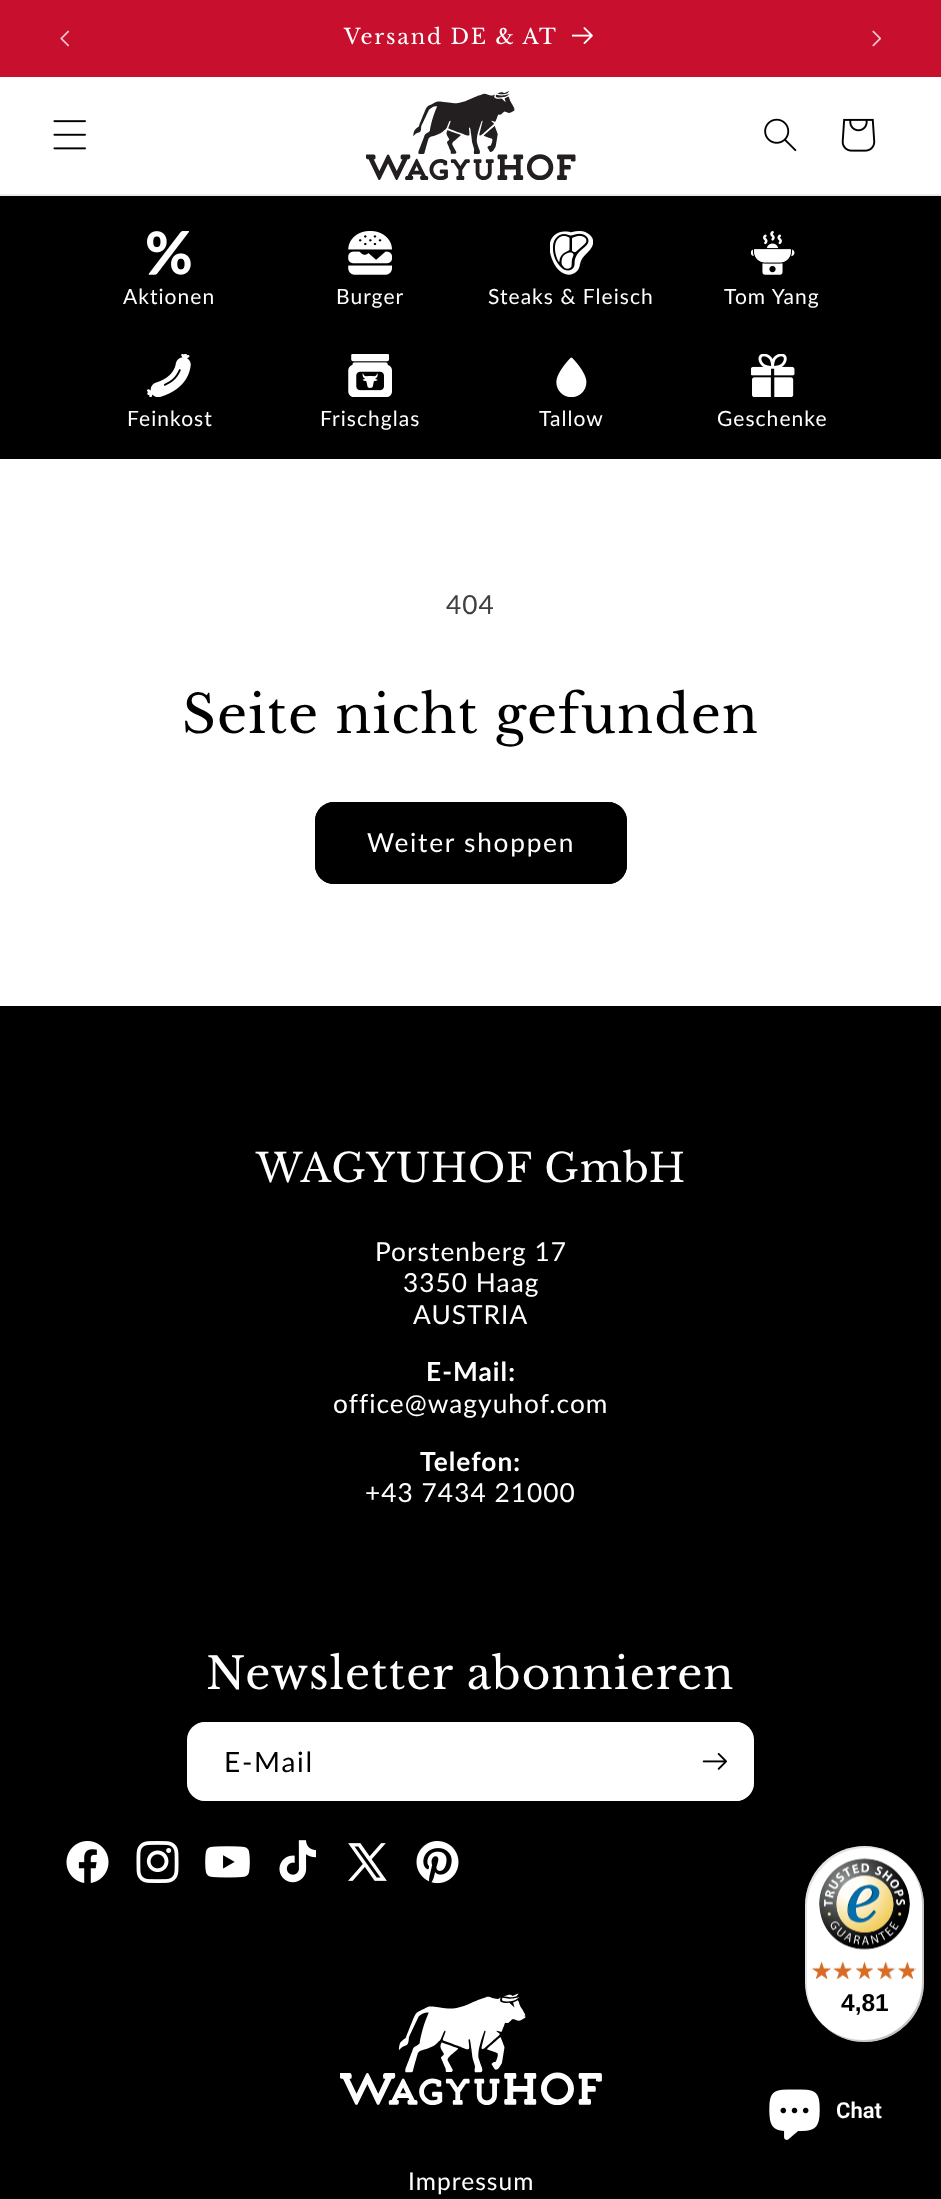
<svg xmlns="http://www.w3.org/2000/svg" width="941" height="2199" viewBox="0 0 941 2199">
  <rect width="100%" height="100%" fill="#ffffff"/>
  <rect x="0" y="0" width="941" height="77" fill="#c8102e"/>
  <image x="60" y="30" width="10" height="17" href="img1.png"/>
  <text x="344" y="44" font-family="Libre Baskerville" font-size="21" letter-spacing="1.75" fill="#ffffff">Versand DE &amp; AT</text>
  <image x="572" y="27" width="21" height="17" href="img2.png"/>
  <image x="872" y="30" width="10" height="17" href="img3.png"/>
  <rect x="0" y="194" width="941" height="2" fill="#ebebeb"/>
  <image x="53" y="120" width="33" height="30" href="img4.png"/>
  <image x="366" y="91" width="210" height="89" href="img5.png"/>
  <image x="764" y="118" width="33" height="34" href="img6.png"/>
  <image x="841" y="118" width="35" height="34" href="img7.png"/>
  <rect x="0" y="196" width="941" height="263" fill="#000000"/>
  <image x="147" y="231" width="44" height="44" href="img8.png"/>
  <text x="123" y="304" font-family="Lato" font-size="21" letter-spacing="1.05" fill="#ffffff">Aktionen</text>
  <image x="348" y="231" width="44" height="44" href="img9.png"/>
  <text x="336" y="304" font-family="Lato" font-size="21" letter-spacing="1.05" fill="#ffffff">Burger</text>
  <image x="550" y="231" width="43" height="44" href="img10.png"/>
  <text x="488" y="304" font-family="Lato" font-size="21" letter-spacing="1.05" fill="#ffffff">Steaks &amp; Fleisch</text>
  <image x="751" y="231" width="44" height="44" href="img11.png"/>
  <text x="724" y="304" font-family="Lato" font-size="21" letter-spacing="1.05" fill="#ffffff">Tom Yang</text>
  <image x="147" y="354" width="44" height="43" href="img12.png"/>
  <text x="127" y="426" font-family="Lato" font-size="21" letter-spacing="1.05" fill="#ffffff">Feinkost</text>
  <image x="348" y="354" width="44" height="43" href="img13.png"/>
  <text x="320" y="426" font-family="Lato" font-size="21" letter-spacing="1.05" fill="#ffffff">Frischglas</text>
  <image x="556" y="357" width="31" height="40" href="img14.png"/>
  <text x="539" y="426" font-family="Lato" font-size="21" letter-spacing="1.05" fill="#ffffff">Tallow</text>
  <image x="751" y="354" width="44" height="43" href="img15.png"/>
  <text x="717" y="426" font-family="Lato" font-size="21" letter-spacing="1.05" fill="#ffffff">Geschenke</text>
  <text x="446" y="614" font-family="Lato" font-size="26.25" letter-spacing="1.05" fill="#404040">404</text>
  <text x="182" y="733" font-family="Libre Baskerville" font-size="52.5" letter-spacing="1.05" fill="#000000">Seite nicht gefunden</text>
  <rect x="315" y="802" width="312" height="82" rx="19" fill="#000000"/>
  <rect x="316" y="803" width="310" height="80" rx="18" fill="none" stroke="#000000" stroke-width="2"/>
  <text x="367" y="852" font-family="Lato" font-size="26.25" letter-spacing="1.75" fill="#ffffff">Weiter shoppen</text>
  <rect x="0" y="1006" width="941" height="1193" fill="#000000"/>
  <text x="256" y="1182" font-family="Libre Baskerville" font-size="39.4" letter-spacing="1.05" fill="#ffffff">WAGYUHOF GmbH</text>
  <text x="375" y="1261" font-family="Lato" font-size="26.25" letter-spacing="1.05" fill="#ffffff">Porstenberg 17</text>
  <text x="403" y="1292" font-family="Lato" font-size="26.25" letter-spacing="1.05" fill="#ffffff">3350 Haag</text>
  <text x="413" y="1324" font-family="Lato" font-size="26.25" letter-spacing="1.05" fill="#ffffff">AUSTRIA</text>
  <text x="426" y="1381" font-family="Lato" font-size="26.25" font-weight="bold" letter-spacing="1.05" fill="#ffffff">E-Mail:</text>
  <text x="333" y="1413" font-family="Lato" font-size="26.25" letter-spacing="1.05" fill="#ffffff">office@wagyuhof.com</text>
  <text x="420" y="1471" font-family="Lato" font-size="26.25" font-weight="bold" letter-spacing="1.05" fill="#ffffff">Telefon:</text>
  <text x="365" y="1502" font-family="Lato" font-size="26.25" letter-spacing="1.05" fill="#ffffff">+43 7434 21000</text>
  <text x="206" y="1689" font-family="Libre Baskerville" font-size="43.75" letter-spacing="1.05" fill="#ffffff">Newsletter abonnieren</text>
  <rect x="187" y="1722" width="567" height="79" rx="18" fill="#ffffff"/>
  <rect x="676" y="1722" width="77" height="79" rx="18" fill="#ffffff"/>
  <image x="702" y="1752" width="25" height="18" href="img16.png"/>
  <rect x="188" y="1723" width="565" height="77" rx="18" fill="none" stroke="#ffffff" stroke-opacity="0.55" stroke-width="2"/>
  <text x="224" y="1772" font-family="Lato" font-size="28" letter-spacing="1.75" fill="#000000">E-Mail</text>
  <image x="66" y="1841" width="43" height="42" href="img17.png"/>
  <image x="136" y="1841" width="43" height="42" href="img18.png"/>
  <image x="205" y="1846" width="45" height="32" href="img19.png"/>
  <image x="279" y="1840" width="37" height="43" href="img20.png"/>
  <image x="348" y="1843" width="39" height="38" href="img21.png"/>
  <image x="416" y="1841" width="43" height="43" href="img22.png"/>
  <image x="340" y="1993" width="262" height="112" href="img23.png"/>
  <text x="408" y="2190" font-family="Lato" font-size="24.5" letter-spacing="1.05" fill="#ffffff">Impressum</text>
  <rect x="805" y="1846" width="119" height="196" rx="59.5" fill="#ffffff"/>
  <path d="M866 1848C884 1848 900 1856 911 1869C900 1855 884 1846 864 1846C832 1846 805 1873 805 1906V1982C805 1999 812 2014 823 2025C813 2014 807 2000 807 1984V1908C807 1875 833 1848 866 1848Z" fill="#000000" fill-opacity="0.1"/>
  <path d="M822 2024C833 2035 848 2042 864 2042C897 2042 924 2015 924 1982V1906C924 1889 917 1874 906 1863C916 1874 922 1888 922 1904V1981C922 2014 896 2040 863 2040C847 2040 833 2034 822 2024Z" fill="#000000" fill-opacity="0.2"/>
  <path d="M827 2028C837 2037 850 2042 864 2042C897 2042 924 2015 924 1982V1906C924 1885 913 1867 897 1856C913 1867 923 1885 923 1905V1982C923 2015 896 2041 863 2041C849 2041 837 2036 827 2028Z" fill="#323232" fill-opacity="0.2"/>
  <path d="M824 2026C834 2036 849 2042 864 2042C897 2042 924 2015 924 1982V1906C924 1886 915 1869 901 1859C914 1870 923 1886 923 1905V1982C923 2015 896 2041 864 2041C849 2041 834 2035 824 2026Z" fill="#ffffff" fill-opacity="0.3"/>
  <image x="819" y="1858" width="91" height="92" href="img24.png"/>
  <image x="812" y="1962" width="19" height="17" href="img25.png"/>
  <image x="835" y="1961" width="17" height="18" href="img26.png"/>
  <image x="856" y="1962" width="17" height="17" href="img27.png"/>
  <image x="877" y="1961" width="19" height="18" href="img28.png"/>
  <image x="898" y="1962" width="19" height="17" href="img29.png"/>
  <image x="812" y="1961" width="19" height="19" href="img30.png"/>
  <image x="833" y="1961" width="19" height="19" href="img31.png"/>
  <image x="856" y="1961" width="17" height="19" href="img32.png"/>
  <image x="877" y="1961" width="17" height="19" href="img33.png"/>
  <image x="898" y="1961" width="16" height="19" href="img34.png"/>
  <text x="841" y="2011" font-family="Liberation Sans" font-size="24.5" font-weight="bold" fill="#000000">4,81</text>
  <image x="769" y="2089" width="51" height="51" href="img35.png"/>
  <text x="836" y="2118" font-family="Roboto" font-size="22" font-weight="600" fill="#ffffff">Chat</text>
</svg>
